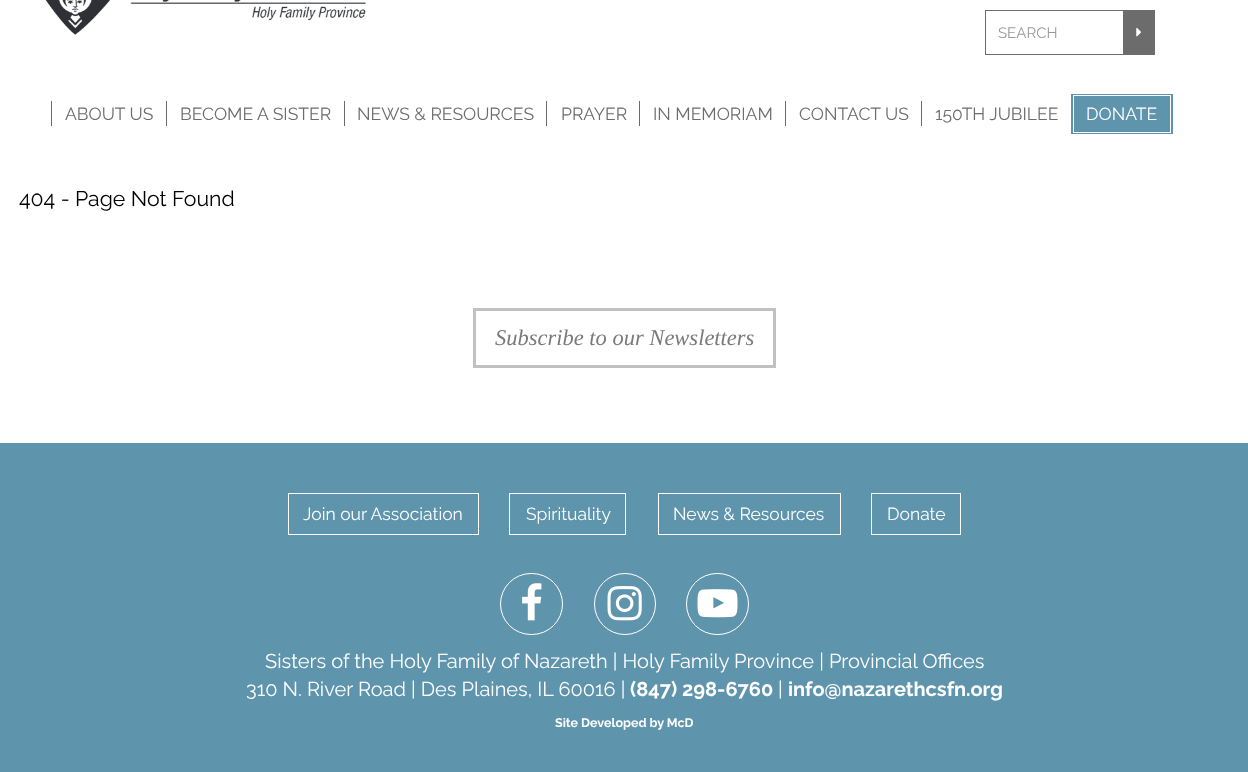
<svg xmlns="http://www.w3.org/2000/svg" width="1248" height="772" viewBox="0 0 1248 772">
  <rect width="100%" height="100%" fill="#ffffff"/>
  <image x="45" y="0" width="321" height="35" href="img1.png"/>
  <rect x="985.5" y="10.5" width="138" height="44" fill="none" stroke="#6c6c6c"/>
  <text x="998" y="38" font-family="Raleway" font-size="15" fill="#999999">SEARCH</text>
  <rect x="1124" y="10" width="31" height="45" fill="#6c6c6c"/>
  <image x="1136" y="27" width="5" height="10" href="img2.png"/>
  <rect x="51" y="101" width="1" height="25" fill="#6c6c6c"/>
  <text x="65" y="120" font-family="Raleway" font-size="17.5" fill="#6c6c6c">ABOUT US</text>
  <rect x="166" y="101" width="1" height="25" fill="#6c6c6c"/>
  <text x="180" y="120" font-family="Raleway" font-size="17.5" fill="#6c6c6c">BECOME A SISTER</text>
  <rect x="344" y="101" width="1" height="25" fill="#6c6c6c"/>
  <text x="357" y="120" font-family="Raleway" font-size="17.5" fill="#6c6c6c">NEWS &amp; RESOURCES</text>
  <rect x="546" y="101" width="1" height="25" fill="#6c6c6c"/>
  <text x="561" y="120" font-family="Raleway" font-size="17.5" fill="#6c6c6c">PRAYER</text>
  <rect x="639" y="101" width="1" height="25" fill="#6c6c6c"/>
  <text x="653" y="120" font-family="Raleway" font-size="17.5" fill="#6c6c6c">IN MEMORIAM</text>
  <rect x="785" y="101" width="1" height="25" fill="#6c6c6c"/>
  <text x="799" y="120" font-family="Raleway" font-size="17.5" fill="#6c6c6c">CONTACT US</text>
  <rect x="921" y="101" width="1" height="25" fill="#6c6c6c"/>
  <text x="935" y="120" font-family="Raleway" font-size="17.5" fill="#6c6c6c">150TH JUBILEE</text>
  <rect x="1071" y="94" width="102" height="40" fill="#5e95ad"/>
  <rect x="1073.5" y="95.5" width="97" height="37" fill="none" stroke="#ffffff"/>
  <text x="1086" y="120" font-family="Raleway" font-size="17.5" fill="#ffffff">DONATE</text>
  <text x="19" y="206" font-family="Raleway" font-size="21.25" fill="#000000">404 - Page Not Found</text>
  <rect x="474.5" y="309.5" width="300" height="57" fill="none" stroke="#c1c1c1" stroke-width="3"/>
  <text x="495" y="345" font-family="Liberation Serif" font-size="22.5" font-style="italic" fill="#7a7a7a">Subscribe to our Newsletters</text>
  <rect x="0" y="443" width="1248" height="329" fill="#5e95ad"/>
  <rect x="288.5" y="493.5" width="190" height="41" fill="none" stroke="#ffffff"/>
  <text x="303" y="520" font-family="Raleway" font-size="17.5" fill="#ffffff">Join our Association</text>
  <rect x="509.5" y="493.5" width="116" height="41" fill="none" stroke="#ffffff"/>
  <text x="526" y="520" font-family="Raleway" font-size="17.5" fill="#ffffff">Spirituality</text>
  <rect x="658.5" y="493.5" width="182" height="41" fill="none" stroke="#ffffff"/>
  <text x="673" y="520" font-family="Raleway" font-size="17.5" fill="#ffffff">News &amp; Resources</text>
  <rect x="871.5" y="493.5" width="89" height="41" fill="none" stroke="#ffffff"/>
  <text x="887" y="520" font-family="Raleway" font-size="17.5" fill="#ffffff">Donate</text>
  <rect x="500.5" y="573.5" width="62" height="61" rx="30.5" fill="none" stroke="#ffffff"/>
  <image x="522" y="583" width="20" height="38" href="img3.png"/>
  <circle cx="625" cy="604" r="30.5" fill="none" stroke="#ffffff"/>
  <image x="607" y="586" width="35" height="35" href="img4.png"/>
  <rect x="686.5" y="573.5" width="62" height="61" rx="30.5" fill="none" stroke="#ffffff"/>
  <image x="697" y="589" width="41" height="29" href="img5.png"/>
  <text x="265" y="668" font-family="Raleway" font-size="20" fill="#ffffff">Sisters of the Holy Family of Nazareth | Holy Family Province | Provincial Offices</text>
  <text x="246" y="696" font-family="Raleway" font-size="20" fill="#ffffff">310 N. River Road | Des Plaines, IL 60016 |</text>
  <text x="630" y="696" font-family="Raleway" font-size="20" font-weight="bold" fill="#ffffff">(847) 298-6760</text>
  <text x="778" y="696" font-family="Raleway" font-size="20" fill="#ffffff">|</text>
  <text x="788" y="696" font-family="Raleway" font-size="20" font-weight="bold" fill="#ffffff">info@nazarethcsfn.org</text>
  <text x="555" y="727" font-family="Raleway" font-size="12.5" font-weight="bold" fill="#ffffff">Site Developed by McD</text>
</svg>
